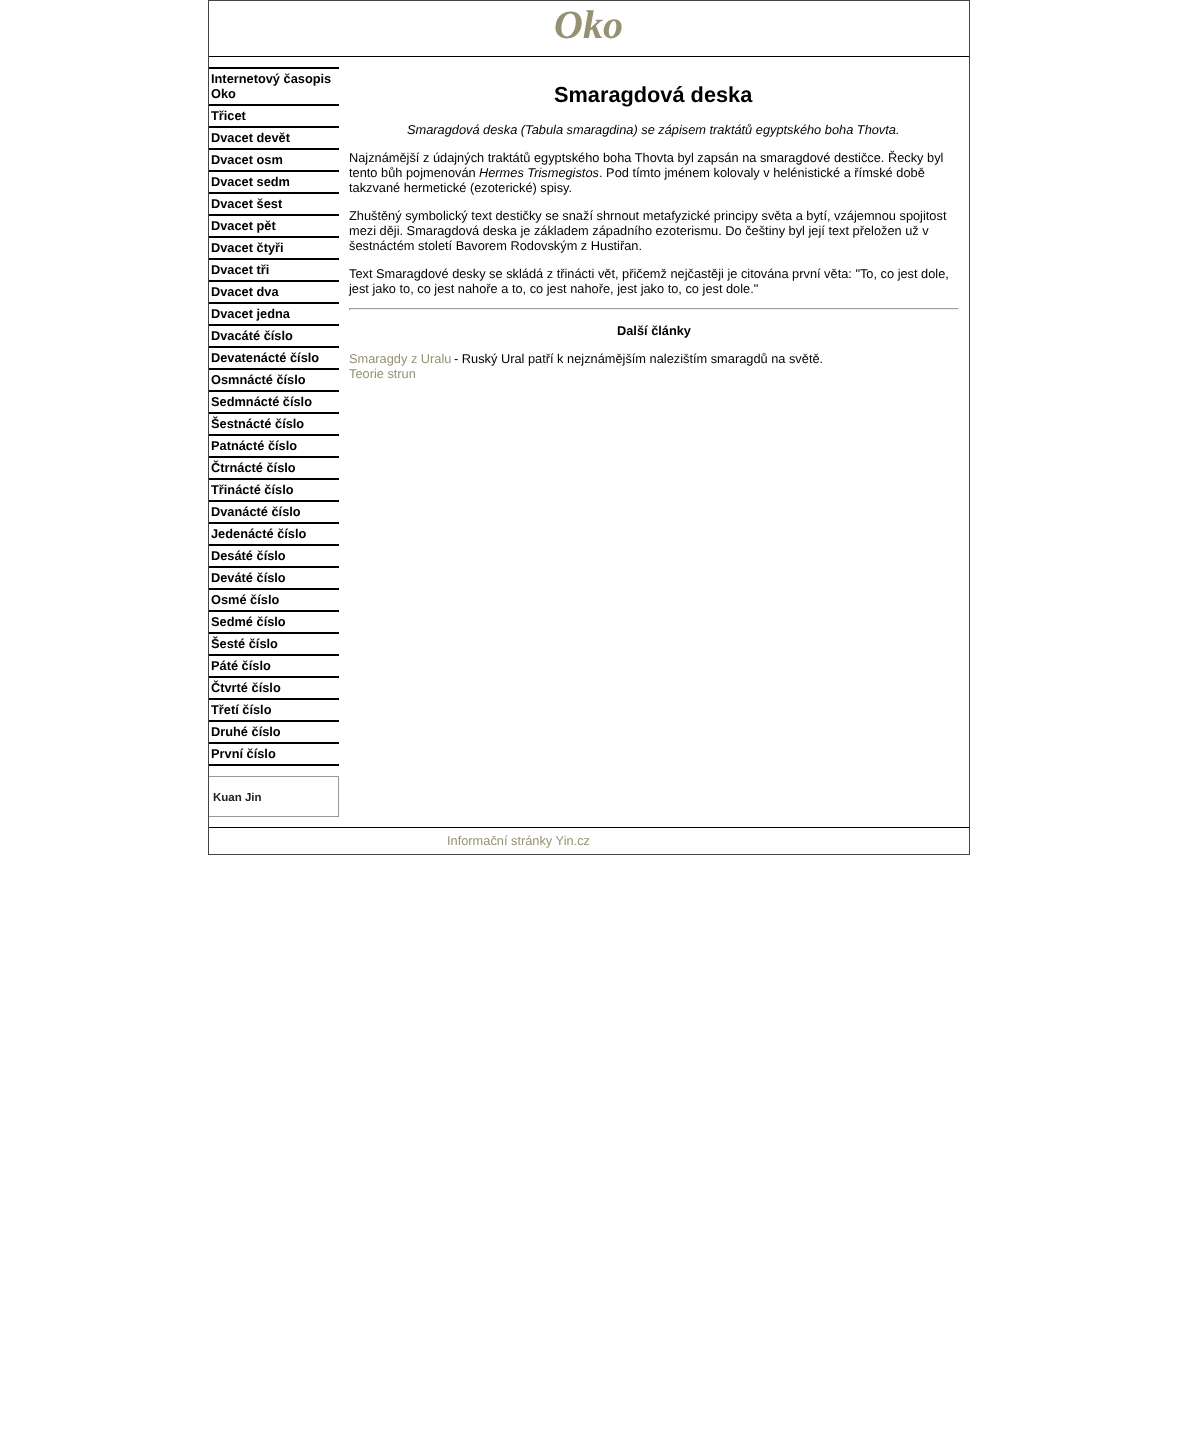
<svg xmlns="http://www.w3.org/2000/svg" width="1177" height="1443" viewBox="0 0 1177 1443">
  <rect width="100%" height="100%" fill="#ffffff"/>
  <rect x="208.5" y="0.5" width="761" height="854" fill="none" stroke="#444444"/>
  <rect x="209" y="56" width="760" height="1" fill="#000000"/>
  <text x="554" y="38" font-family="Liberation Serif" font-size="40" font-weight="bold" font-style="italic" fill="#959273">Oko</text>
  <rect x="209" y="764" width="130" height="2" fill="#000000"/>
  <rect x="209" y="67" width="130" height="2" fill="#000000"/>
  <text x="211" y="83" font-family="Liberation Sans" font-size="12.8" font-weight="bold" fill="#000000">Internetový časopis</text>
  <text x="211" y="98" font-family="Liberation Sans" font-size="12.8" font-weight="bold" fill="#000000">Oko</text>
  <rect x="209" y="104" width="130" height="2" fill="#000000"/>
  <text x="211" y="120" font-family="Liberation Sans" font-size="12.8" font-weight="bold" fill="#000000">Třicet</text>
  <rect x="209" y="126" width="130" height="2" fill="#000000"/>
  <text x="211" y="142" font-family="Liberation Sans" font-size="12.8" font-weight="bold" fill="#000000">Dvacet devět</text>
  <rect x="209" y="148" width="130" height="2" fill="#000000"/>
  <text x="211" y="164" font-family="Liberation Sans" font-size="12.8" font-weight="bold" fill="#000000">Dvacet osm</text>
  <rect x="209" y="170" width="130" height="2" fill="#000000"/>
  <text x="211" y="186" font-family="Liberation Sans" font-size="12.8" font-weight="bold" fill="#000000">Dvacet sedm</text>
  <rect x="209" y="192" width="130" height="2" fill="#000000"/>
  <text x="211" y="208" font-family="Liberation Sans" font-size="12.8" font-weight="bold" fill="#000000">Dvacet šest</text>
  <rect x="209" y="214" width="130" height="2" fill="#000000"/>
  <text x="211" y="230" font-family="Liberation Sans" font-size="12.8" font-weight="bold" fill="#000000">Dvacet pět</text>
  <rect x="209" y="236" width="130" height="2" fill="#000000"/>
  <text x="211" y="252" font-family="Liberation Sans" font-size="12.8" font-weight="bold" fill="#000000">Dvacet čtyři</text>
  <rect x="209" y="258" width="130" height="2" fill="#000000"/>
  <text x="211" y="274" font-family="Liberation Sans" font-size="12.8" font-weight="bold" fill="#000000">Dvacet tři</text>
  <rect x="209" y="280" width="130" height="2" fill="#000000"/>
  <text x="211" y="296" font-family="Liberation Sans" font-size="12.8" font-weight="bold" fill="#000000">Dvacet dva</text>
  <rect x="209" y="302" width="130" height="2" fill="#000000"/>
  <text x="211" y="318" font-family="Liberation Sans" font-size="12.8" font-weight="bold" fill="#000000">Dvacet jedna</text>
  <rect x="209" y="324" width="130" height="2" fill="#000000"/>
  <text x="211" y="340" font-family="Liberation Sans" font-size="12.8" font-weight="bold" fill="#000000">Dvacáté číslo</text>
  <rect x="209" y="346" width="130" height="2" fill="#000000"/>
  <text x="211" y="362" font-family="Liberation Sans" font-size="12.8" font-weight="bold" fill="#000000">Devatenácté číslo</text>
  <rect x="209" y="368" width="130" height="2" fill="#000000"/>
  <text x="211" y="384" font-family="Liberation Sans" font-size="12.8" font-weight="bold" fill="#000000">Osmnácté číslo</text>
  <rect x="209" y="390" width="130" height="2" fill="#000000"/>
  <text x="211" y="406" font-family="Liberation Sans" font-size="12.8" font-weight="bold" fill="#000000">Sedmnácté číslo</text>
  <rect x="209" y="412" width="130" height="2" fill="#000000"/>
  <text x="211" y="428" font-family="Liberation Sans" font-size="12.8" font-weight="bold" fill="#000000">Šestnácté číslo</text>
  <rect x="209" y="434" width="130" height="2" fill="#000000"/>
  <text x="211" y="450" font-family="Liberation Sans" font-size="12.8" font-weight="bold" fill="#000000">Patnácté číslo</text>
  <rect x="209" y="456" width="130" height="2" fill="#000000"/>
  <text x="211" y="472" font-family="Liberation Sans" font-size="12.8" font-weight="bold" fill="#000000">Čtrnácté číslo</text>
  <rect x="209" y="478" width="130" height="2" fill="#000000"/>
  <text x="211" y="494" font-family="Liberation Sans" font-size="12.8" font-weight="bold" fill="#000000">Třinácté číslo</text>
  <rect x="209" y="500" width="130" height="2" fill="#000000"/>
  <text x="211" y="516" font-family="Liberation Sans" font-size="12.8" font-weight="bold" fill="#000000">Dvanácté číslo</text>
  <rect x="209" y="522" width="130" height="2" fill="#000000"/>
  <text x="211" y="538" font-family="Liberation Sans" font-size="12.8" font-weight="bold" fill="#000000">Jedenácté číslo</text>
  <rect x="209" y="544" width="130" height="2" fill="#000000"/>
  <text x="211" y="560" font-family="Liberation Sans" font-size="12.8" font-weight="bold" fill="#000000">Desáté číslo</text>
  <rect x="209" y="566" width="130" height="2" fill="#000000"/>
  <text x="211" y="582" font-family="Liberation Sans" font-size="12.8" font-weight="bold" fill="#000000">Deváté číslo</text>
  <rect x="209" y="588" width="130" height="2" fill="#000000"/>
  <text x="211" y="604" font-family="Liberation Sans" font-size="12.8" font-weight="bold" fill="#000000">Osmé číslo</text>
  <rect x="209" y="610" width="130" height="2" fill="#000000"/>
  <text x="211" y="626" font-family="Liberation Sans" font-size="12.8" font-weight="bold" fill="#000000">Sedmé číslo</text>
  <rect x="209" y="632" width="130" height="2" fill="#000000"/>
  <text x="211" y="648" font-family="Liberation Sans" font-size="12.8" font-weight="bold" fill="#000000">Šesté číslo</text>
  <rect x="209" y="654" width="130" height="2" fill="#000000"/>
  <text x="211" y="670" font-family="Liberation Sans" font-size="12.8" font-weight="bold" fill="#000000">Páté číslo</text>
  <rect x="209" y="676" width="130" height="2" fill="#000000"/>
  <text x="211" y="692" font-family="Liberation Sans" font-size="12.8" font-weight="bold" fill="#000000">Čtvrté číslo</text>
  <rect x="209" y="698" width="130" height="2" fill="#000000"/>
  <text x="211" y="714" font-family="Liberation Sans" font-size="12.8" font-weight="bold" fill="#000000">Třetí číslo</text>
  <rect x="209" y="720" width="130" height="2" fill="#000000"/>
  <text x="211" y="736" font-family="Liberation Sans" font-size="12.8" font-weight="bold" fill="#000000">Druhé číslo</text>
  <rect x="209" y="742" width="130" height="2" fill="#000000"/>
  <text x="211" y="758" font-family="Liberation Sans" font-size="12.8" font-weight="bold" fill="#000000">První číslo</text>
  <rect x="209" y="776" width="130" height="1" fill="#999999"/>
  <rect x="338" y="776" width="1" height="41" fill="#999999"/>
  <rect x="209" y="816" width="130" height="1" fill="#999999"/>
  <text x="213" y="801" font-family="Liberation Sans" font-size="11.5" font-weight="bold" fill="#222222">Kuan Jin</text>
  <text x="554" y="102" font-family="Liberation Sans" font-size="21.75" font-weight="bold" fill="#000000">Smaragdová deska</text>
  <text x="407" y="134" font-family="Liberation Sans" font-size="12.8" font-style="italic" fill="#000000">Smaragdová deska (Tabula smaragdina) se zápisem traktátů egyptského boha Thovta.</text>
  <text x="349" y="162" font-family="Liberation Sans" font-size="12.8" fill="#000000">Najznámější z údajných traktátů egyptského boha Thovta byl zapsán na smaragdové destičce. Řecky byl</text>
  <text x="349" y="177" font-family="Liberation Sans" font-size="12.8" fill="#000000">tento bůh pojmenován</text>
  <text x="479" y="177" font-family="Liberation Sans" font-size="12.8" font-style="italic" fill="#000000">Hermes Trismegistos</text>
  <text x="599" y="177" font-family="Liberation Sans" font-size="12.8" fill="#000000">. Pod tímto jménem kolovaly v helénistické a římské době</text>
  <text x="349" y="192" font-family="Liberation Sans" font-size="12.8" fill="#000000">takzvané hermetické (ezoterické) spisy.</text>
  <text x="349" y="220" font-family="Liberation Sans" font-size="12.8" fill="#000000">Zhuštěný symbolický text destičky se snaží shrnout metafyzické principy světa a bytí, vzájemnou spojitost</text>
  <text x="349" y="235" font-family="Liberation Sans" font-size="12.8" fill="#000000">mezi ději. Smaragdová deska je základem západního ezoterismu. Do češtiny byl její text přeložen už v</text>
  <text x="349" y="250" font-family="Liberation Sans" font-size="12.8" fill="#000000">šestnáctém století Bavorem Rodovským z Hustiřan.</text>
  <text x="349" y="278" font-family="Liberation Sans" font-size="12.8" fill="#000000">Text Smaragdové desky se skládá z třinácti vět, přičemž nejčastěji je citována první věta: "To, co jest dole,</text>
  <text x="349" y="293" font-family="Liberation Sans" font-size="12.8" fill="#000000">jest jako to, co jest nahoře a to, co jest nahoře, jest jako to, co jest dole."</text>
  <rect x="349" y="308" width="610" height="1" fill="#9f9f9f"/>
  <rect x="958" y="308" width="1" height="2" fill="#eeeeee"/>
  <rect x="349" y="309" width="610" height="1" fill="#eeeeee"/>
  <rect x="349" y="308" width="1" height="2" fill="#9f9f9f"/>
  <text x="617" y="335" font-family="Liberation Sans" font-size="12.8" font-weight="bold" fill="#000000">Další články</text>
  <text x="349" y="363" font-family="Liberation Sans" font-size="12.8" fill="#959273">Smaragdy z Uralu</text>
  <text x="454" y="363" font-family="Liberation Sans" font-size="12.8" fill="#000000">- Ruský Ural patří k nejznámějším nalezištím smaragdů na světě.</text>
  <text x="349" y="378" font-family="Liberation Sans" font-size="12.8" fill="#959273">Teorie strun</text>
  <rect x="209" y="827" width="760" height="1" fill="#000000"/>
  <text x="447" y="845" font-family="Liberation Sans" font-size="12.8" fill="#959273">Informační stránky Yin.cz</text>
</svg>
